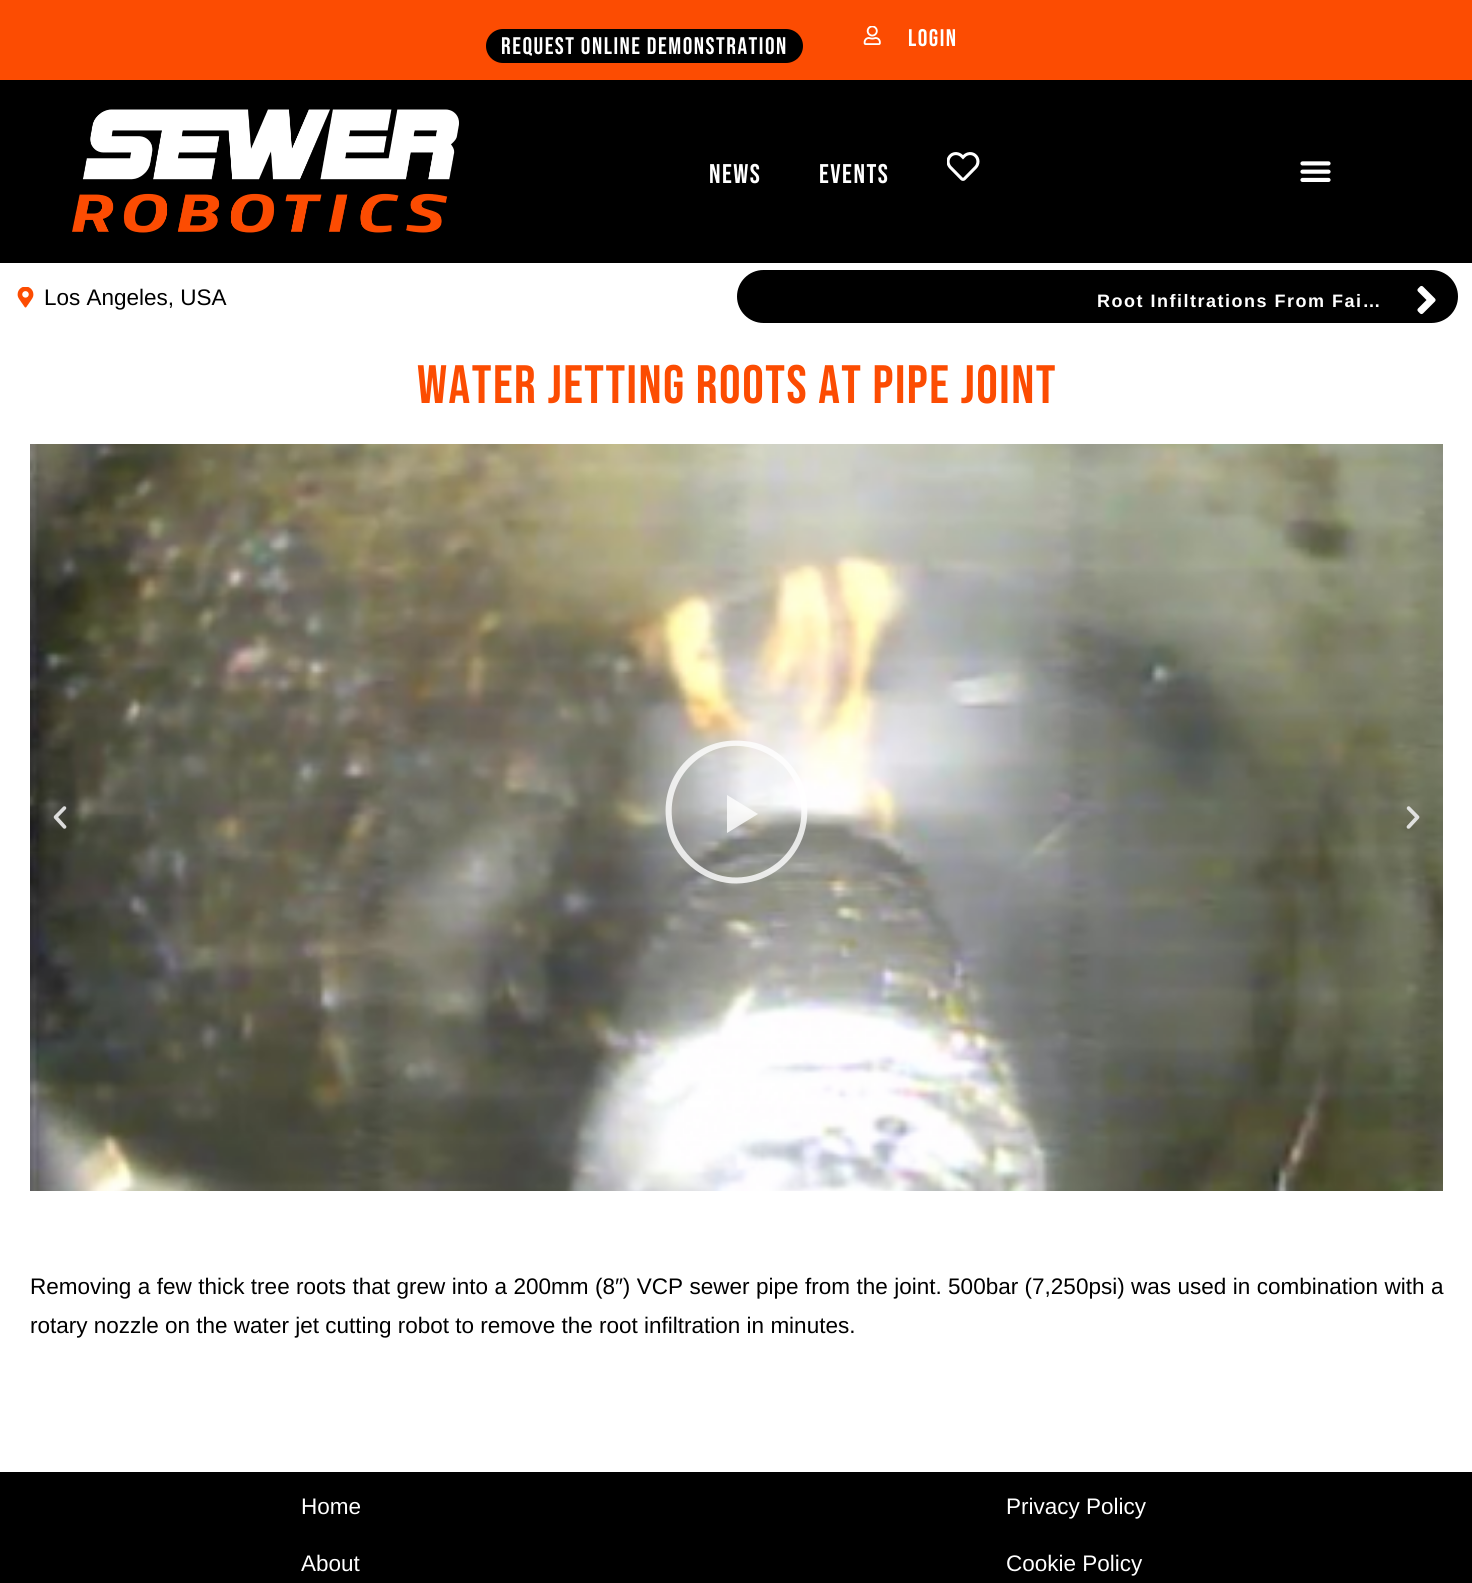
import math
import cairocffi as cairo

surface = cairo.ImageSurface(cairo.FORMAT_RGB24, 1472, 1583)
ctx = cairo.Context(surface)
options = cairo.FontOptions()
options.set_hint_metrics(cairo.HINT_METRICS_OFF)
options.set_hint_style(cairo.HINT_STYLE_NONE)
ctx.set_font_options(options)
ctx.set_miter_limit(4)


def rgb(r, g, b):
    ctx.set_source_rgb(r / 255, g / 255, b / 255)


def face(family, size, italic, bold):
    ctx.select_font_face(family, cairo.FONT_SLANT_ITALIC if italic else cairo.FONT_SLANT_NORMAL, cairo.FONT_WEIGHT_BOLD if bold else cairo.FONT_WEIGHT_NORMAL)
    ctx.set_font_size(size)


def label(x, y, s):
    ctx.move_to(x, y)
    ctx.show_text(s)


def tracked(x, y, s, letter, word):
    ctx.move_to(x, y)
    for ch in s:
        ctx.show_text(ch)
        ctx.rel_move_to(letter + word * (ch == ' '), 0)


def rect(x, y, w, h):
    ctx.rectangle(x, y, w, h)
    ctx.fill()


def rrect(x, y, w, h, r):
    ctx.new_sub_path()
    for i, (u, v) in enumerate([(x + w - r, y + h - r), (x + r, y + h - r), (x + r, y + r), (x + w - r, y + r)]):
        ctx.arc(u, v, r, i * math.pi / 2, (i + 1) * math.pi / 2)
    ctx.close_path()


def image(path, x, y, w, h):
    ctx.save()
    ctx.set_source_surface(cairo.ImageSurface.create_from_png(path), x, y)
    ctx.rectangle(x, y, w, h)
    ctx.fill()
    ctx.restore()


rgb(255, 255, 255)
ctx.paint()
rgb(252, 76, 2)
rect(0, 0, 1472, 80)
rgb(0, 0, 0)
rrect(486, 29, 317, 34, 17)
ctx.fill()
face('Bebas Neue', 24, 0, 0)
rgb(255, 255, 255)
tracked(501, 54, 'Request online demonstration', 1.5, 0)
image('image0.png', 863, 26, 18, 19)
tracked(908, 46, 'Login', 1.5, 0)
rgb(0, 0, 0)
rect(0, 80, 1472, 183)
image('image1.png', 72, 109, 387, 124)
face('Bebas Neue', 27, 0, 0)
rgb(255, 255, 255)
tracked(709, 183, 'News', 1.5, 0)
tracked(819, 183, 'Events', 1.5, 0)
image('image2.png', 947, 152, 33, 29)
image('image3.png', 1300, 161, 31, 21)
image('image4.png', 17, 287, 17, 21)
face('Liberation Sans', 22.5, 0, 0)
rgb(0, 0, 0)
label(44, 305, 'Los Angeles, USA')
rrect(737, 270, 721, 53, 26.5)
ctx.fill()
face('Liberation Sans', 18, 0, 1)
rgb(255, 255, 255)
tracked(1097, 307, 'Root Infiltrations From Fai…', 1.5, 0)
image('image5.png', 1417, 285, 19, 30)
face('Bebas Neue', 54, 0, 0)
rgb(252, 76, 2)
tracked(417, 403, 'Water jetting roots at pipe joint', 1.5, 0)
image('image6.png', 30, 444, 1413, 747)
ctx.set_source_rgba(1, 1, 1, 0.8)
ctx.new_path()
ctx.move_to(787, 761)
ctx.curve_to(775, 749, 760, 742, 744, 741)
ctx.curve_to(698, 736, 661, 773, 666, 819)
ctx.curve_to(667, 835, 674, 850, 686, 862)
ctx.curve_to(734, 910, 813, 872, 807, 804)
ctx.curve_to(806, 788, 799, 773, 787, 761)
ctx.move_to(783, 765)
ctx.curve_to(793, 776, 800, 790, 801, 805)
ctx.curve_to(807, 866, 734, 902, 691, 858)
ctx.curve_to(680, 847, 673, 833, 672, 818)
ctx.curve_to(670, 798, 677, 779, 691, 765)
ctx.curve_to(717, 739, 756, 740, 783, 765)
ctx.move_to(727, 795)
ctx.line_to(727, 833)
ctx.line_to(758, 814)
ctx.close_path()
ctx.fill()
image('image7.png', 53, 806, 14, 23)
image('image8.png', 1406, 806, 14, 23)
face('Liberation Sans', 22.5, 0, 0)
rgb(0, 0, 0)
tracked(30, 1294, 'Removing a few thick tree roots that grew into a 200mm (8″) VCP sewer pipe from the joint. 500bar (7,250psi) was used in combination with a', 0, 0.2)
label(30, 1333, 'rotary nozzle on the water jet cutting robot to remove the root infiltration in minutes.')
rect(0, 1472, 1472, 111)
rgb(255, 255, 255)
label(301, 1514, 'Home')
label(301, 1571, 'About')
label(1006, 1514, 'Privacy Policy')
label(1006, 1571, 'Cookie Policy')
surface.write_to_png('render.png')
